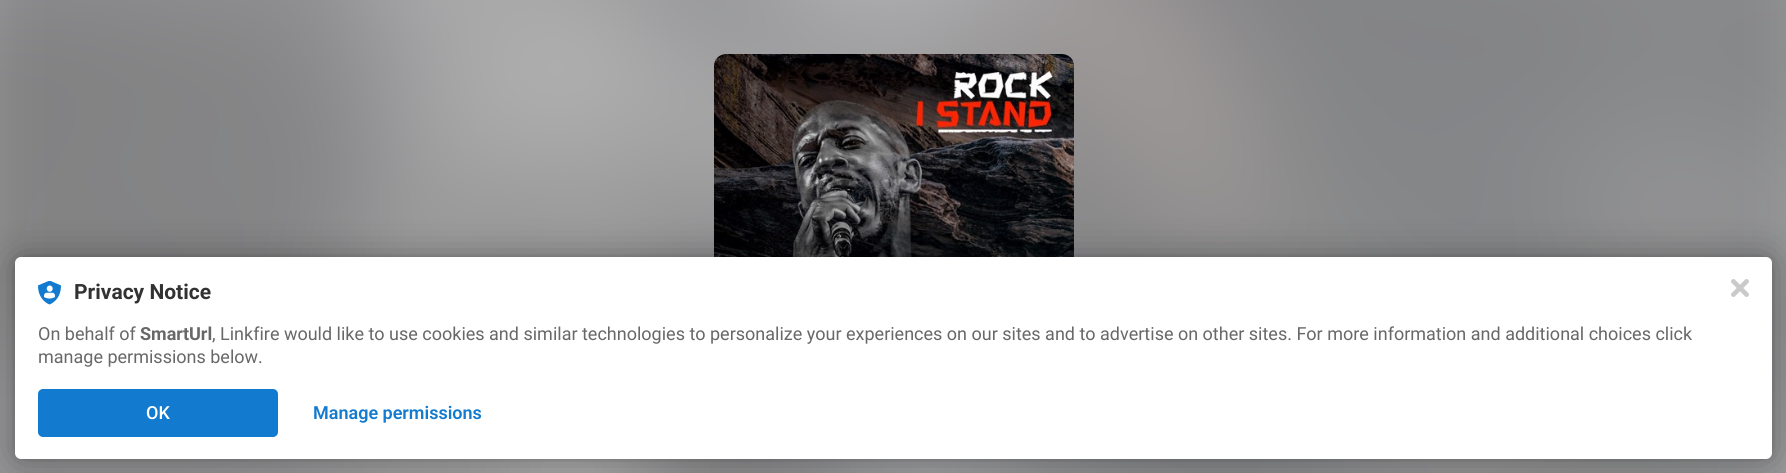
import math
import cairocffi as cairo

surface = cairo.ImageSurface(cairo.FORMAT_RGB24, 1786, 473)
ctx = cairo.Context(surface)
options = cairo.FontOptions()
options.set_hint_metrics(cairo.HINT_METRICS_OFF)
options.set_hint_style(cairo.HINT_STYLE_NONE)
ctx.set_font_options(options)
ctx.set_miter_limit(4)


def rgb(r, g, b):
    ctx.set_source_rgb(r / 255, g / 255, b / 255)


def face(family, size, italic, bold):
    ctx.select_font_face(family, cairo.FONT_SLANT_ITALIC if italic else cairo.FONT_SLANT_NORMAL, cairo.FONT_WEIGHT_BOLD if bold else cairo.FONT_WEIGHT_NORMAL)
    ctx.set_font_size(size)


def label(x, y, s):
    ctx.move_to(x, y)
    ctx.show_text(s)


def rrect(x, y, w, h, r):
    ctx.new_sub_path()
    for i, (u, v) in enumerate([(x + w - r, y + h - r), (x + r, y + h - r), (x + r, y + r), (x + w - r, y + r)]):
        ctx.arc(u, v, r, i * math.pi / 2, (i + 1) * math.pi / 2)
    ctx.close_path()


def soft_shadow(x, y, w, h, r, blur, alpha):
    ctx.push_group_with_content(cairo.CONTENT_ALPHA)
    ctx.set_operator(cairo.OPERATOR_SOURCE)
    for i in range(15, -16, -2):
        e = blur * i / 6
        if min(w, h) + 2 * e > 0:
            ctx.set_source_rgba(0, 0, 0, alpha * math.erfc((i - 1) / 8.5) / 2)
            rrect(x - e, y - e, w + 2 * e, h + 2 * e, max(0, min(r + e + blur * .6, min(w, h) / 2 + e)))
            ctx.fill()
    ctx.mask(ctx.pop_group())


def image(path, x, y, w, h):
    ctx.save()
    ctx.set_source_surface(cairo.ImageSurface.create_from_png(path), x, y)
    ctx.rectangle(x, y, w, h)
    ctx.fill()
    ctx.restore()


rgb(255, 255, 255)
ctx.paint()
image('image0.png', 0, 0, 1786, 473)
image('image1.png', 714, 54, 360, 203)
rgb(0, 0, 0)
soft_shadow(15, 257, 1757, 202, 6, 3, 0.12)
soft_shadow(15, 257, 1757, 202, 6, 18, 0.3)
rgb(255, 255, 255)
rrect(15, 257, 1757, 202, 6)
ctx.fill()
image('image2.png', 38, 281, 23, 24)
face('Roboto', 21, 0, 1)
rgb(50, 50, 50)
label(74, 299, 'Privacy Notice')
face('Roboto', 18, 0, 0)
rgb(104, 104, 104)
label(38, 340, 'On behalf of')
face('Roboto', 18, 0, 1)
label(140, 340, 'SmartUrl')
face('Roboto', 18, 0, 0)
label(212, 340, ', Linkfire would like to use cookies and similar technologies to personalize your experiences on our sites and to advertise on other sites. For more information and additional choices click')
label(38, 363, 'manage permissions below.')
rgb(19, 123, 207)
rrect(38, 389, 240, 48, 5)
ctx.fill()
face('Roboto Medium', 18, 0, 0)
rgb(255, 255, 255)
label(146, 419, 'OK')
face('Roboto SemiBold', 18, 0, 0)
rgb(19, 123, 207)
label(313, 419, 'Manage permissions')
image('image3.png', 1731, 279, 18, 18)
surface.write_to_png('render.png')
